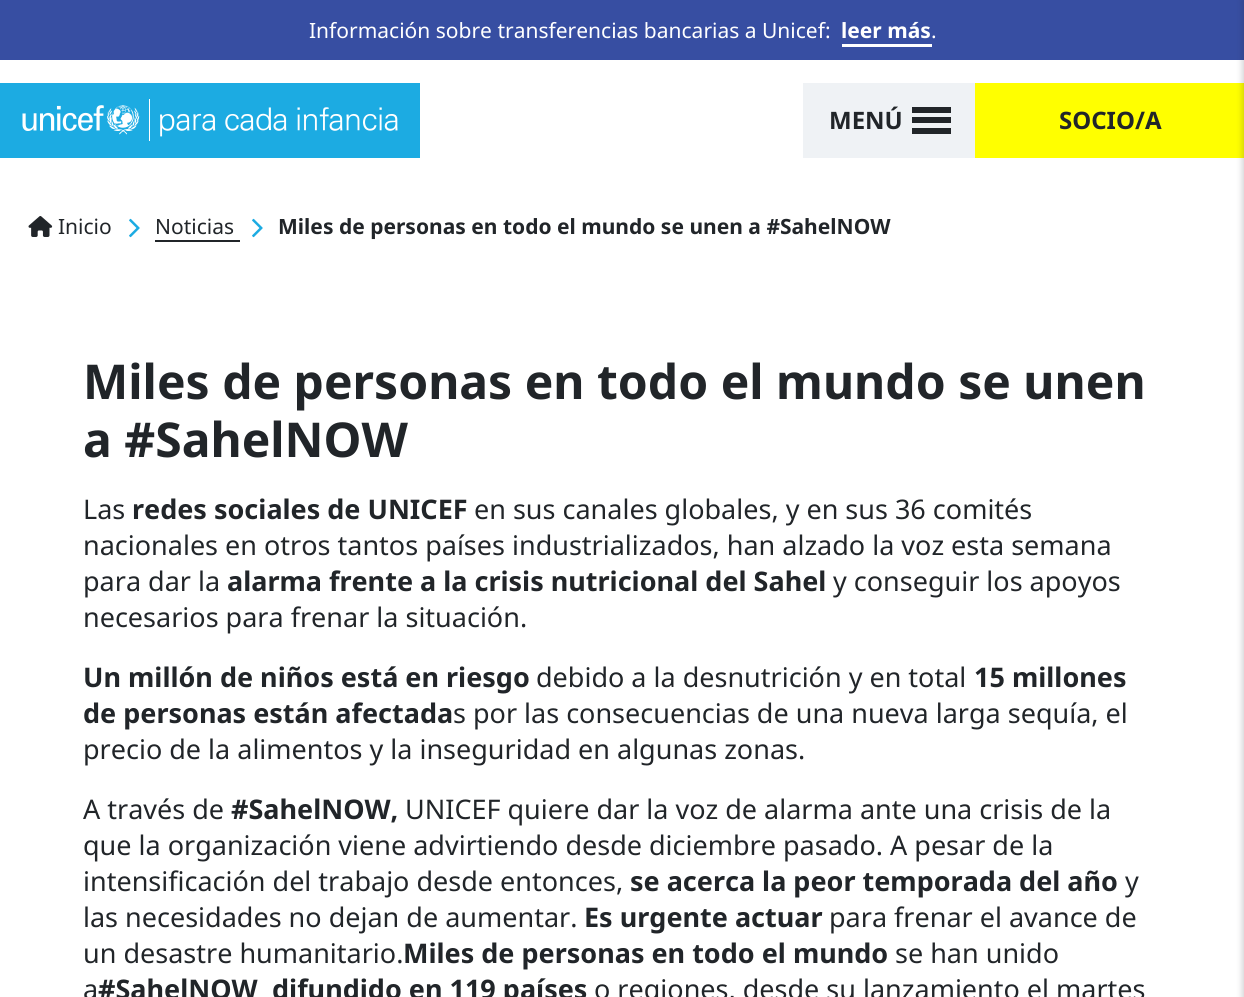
import math
import cairocffi as cairo

surface = cairo.ImageSurface(cairo.FORMAT_RGB24, 1244, 997)
ctx = cairo.Context(surface)
options = cairo.FontOptions()
options.set_hint_metrics(cairo.HINT_METRICS_OFF)
options.set_hint_style(cairo.HINT_STYLE_NONE)
ctx.set_font_options(options)
ctx.set_miter_limit(4)


def rgb(r, g, b):
    ctx.set_source_rgb(r / 255, g / 255, b / 255)


def face(family, size, italic, bold):
    ctx.select_font_face(family, cairo.FONT_SLANT_ITALIC if italic else cairo.FONT_SLANT_NORMAL, cairo.FONT_WEIGHT_BOLD if bold else cairo.FONT_WEIGHT_NORMAL)
    ctx.set_font_size(size)


def label(x, y, s):
    ctx.move_to(x, y)
    ctx.show_text(s)


def rect(x, y, w, h):
    ctx.rectangle(x, y, w, h)
    ctx.fill()


def rrect(x, y, w, h, r):
    ctx.new_sub_path()
    for i, (u, v) in enumerate([(x + w - r, y + h - r), (x + r, y + h - r), (x + r, y + r), (x + w - r, y + r)]):
        ctx.arc(u, v, r, i * math.pi / 2, (i + 1) * math.pi / 2)
    ctx.close_path()


def soft_shadow(x, y, w, h, r, blur, alpha):
    ctx.push_group_with_content(cairo.CONTENT_ALPHA)
    ctx.set_operator(cairo.OPERATOR_SOURCE)
    for i in range(15, -16, -2):
        e = blur * i / 6
        if min(w, h) + 2 * e > 0:
            ctx.set_source_rgba(0, 0, 0, alpha * math.erfc((i - 1) / 8.5) / 2)
            rrect(x - e, y - e, w + 2 * e, h + 2 * e, max(0, min(r + e + blur * .6, min(w, h) / 2 + e)))
            ctx.fill()
    ctx.mask(ctx.pop_group())


def image(path, x, y, w, h):
    ctx.save()
    ctx.set_source_surface(cairo.ImageSurface.create_from_png(path), x, y)
    ctx.rectangle(x, y, w, h)
    ctx.fill()
    ctx.restore()


rgb(255, 255, 255)
ctx.paint()
rgb(55, 78, 162)
rect(0, 0, 1244, 60)
face('Noto Sans', 21, 0, 0)
rgb(255, 255, 255)
label(309, 38, 'Información sobre transferencias bancarias a Unicef:')
rect(842, 44, 90, 3)
face('Noto Sans', 21, 0, 1)
label(841, 38, 'leer más')
face('Noto Sans', 21, 0, 0)
label(931, 38, '.')
rgb(255, 255, 0)
rect(975, 83, 269, 75)
rgb(33, 37, 41)
soft_shadow(1242, 0, 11, 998, 0, 3, 0.2)
rgb(28, 171, 226)
rect(0, 83, 420, 75)
image('image0.png', 22, 99, 376, 42)
rgb(239, 242, 245)
rect(803, 83, 172, 75)
face('Noto Sans', 24, 0, 1)
rgb(33, 37, 41)
label(829, 129, 'MENÚ')
rect(912, 107, 39, 6)
rect(912, 117, 39, 6)
rect(912, 128, 39, 6)
label(1059, 129, 'SOCIO/A')
image('image1.png', 28, 216, 25, 21)
face('Noto Sans', 21, 0, 0)
label(58, 234, 'Inicio')
image('image2.png', 129, 218, 11, 20)
label(155, 234, 'Noticias')
rect(155, 240, 85, 2)
image('image2.png', 252, 218, 11, 20)
face('Noto Sans', 21, 0, 1)
label(278, 234, 'Miles de personas en todo el mundo se unen a #SahelNOW')
face('Noto Sans', 48, 0, 1)
label(83, 399, 'Miles de personas en todo el mundo se unen')
label(83, 457, 'a #SahelNOW')
face('Noto Sans', 27, 0, 0)
label(83, 519, 'Las')
face('Noto Sans', 27, 0, 1)
label(132, 519, 'redes sociales de UNICEF')
face('Noto Sans', 27, 0, 0)
label(474, 519, 'en sus canales globales, y en sus 36 comités')
label(83, 555, 'nacionales en otros tantos países industrializados, han alzado la voz esta semana')
label(83, 591, 'para dar la')
face('Noto Sans', 27, 0, 1)
label(227, 591, 'alarma frente a la crisis nutricional del Sahel')
face('Noto Sans', 27, 0, 0)
label(833, 591, 'y conseguir los apoyos')
label(83, 627, 'necesarios para frenar la situación.')
face('Noto Sans', 27, 0, 1)
label(83, 687, 'Un millón de niños está en riesgo')
face('Noto Sans', 27, 0, 0)
label(536, 687, 'debido a la desnutrición y en total')
face('Noto Sans', 27, 0, 1)
label(974, 687, '15 millones')
label(83, 723, 'de personas están afectada')
face('Noto Sans', 27, 0, 0)
label(453, 723, 's por las consecuencias de una nueva larga sequía, el')
label(83, 759, 'precio de la alimentos y la inseguridad en algunas zonas.')
label(83, 819, 'A través de')
face('Noto Sans', 27, 0, 1)
label(231, 819, '#SahelNOW,')
face('Noto Sans', 27, 0, 0)
label(405, 819, 'UNICEF quiere dar la voz de alarma ante una crisis de la')
label(83, 855, 'que la organización viene advirtiendo desde diciembre pasado. A pesar de la')
label(83, 891, 'intensificación del trabajo desde entonces,')
face('Noto Sans', 27, 0, 1)
label(630, 891, 'se acerca la peor temporada del año')
face('Noto Sans', 27, 0, 0)
label(1125, 891, 'y')
label(83, 927, 'las necesidades no dejan de aumentar.')
face('Noto Sans', 27, 0, 1)
label(584, 927, 'Es urgente actuar')
face('Noto Sans', 27, 0, 0)
label(829, 927, 'para frenar el avance de')
label(83, 963, 'un desastre humanitario.')
face('Noto Sans', 27, 0, 1)
label(403, 963, 'Miles de personas en todo el mundo')
face('Noto Sans', 27, 0, 0)
label(895, 963, 'se han unido')
label(83, 999, 'a')
face('Noto Sans', 27, 0, 1)
label(98, 999, '#SahelNOW')
label(272, 999, 'difundido en 119 países')
face('Noto Sans', 27, 0, 0)
label(594, 999, 'o regiones, desde su lanzamiento el martes')
surface.write_to_png('render.png')
